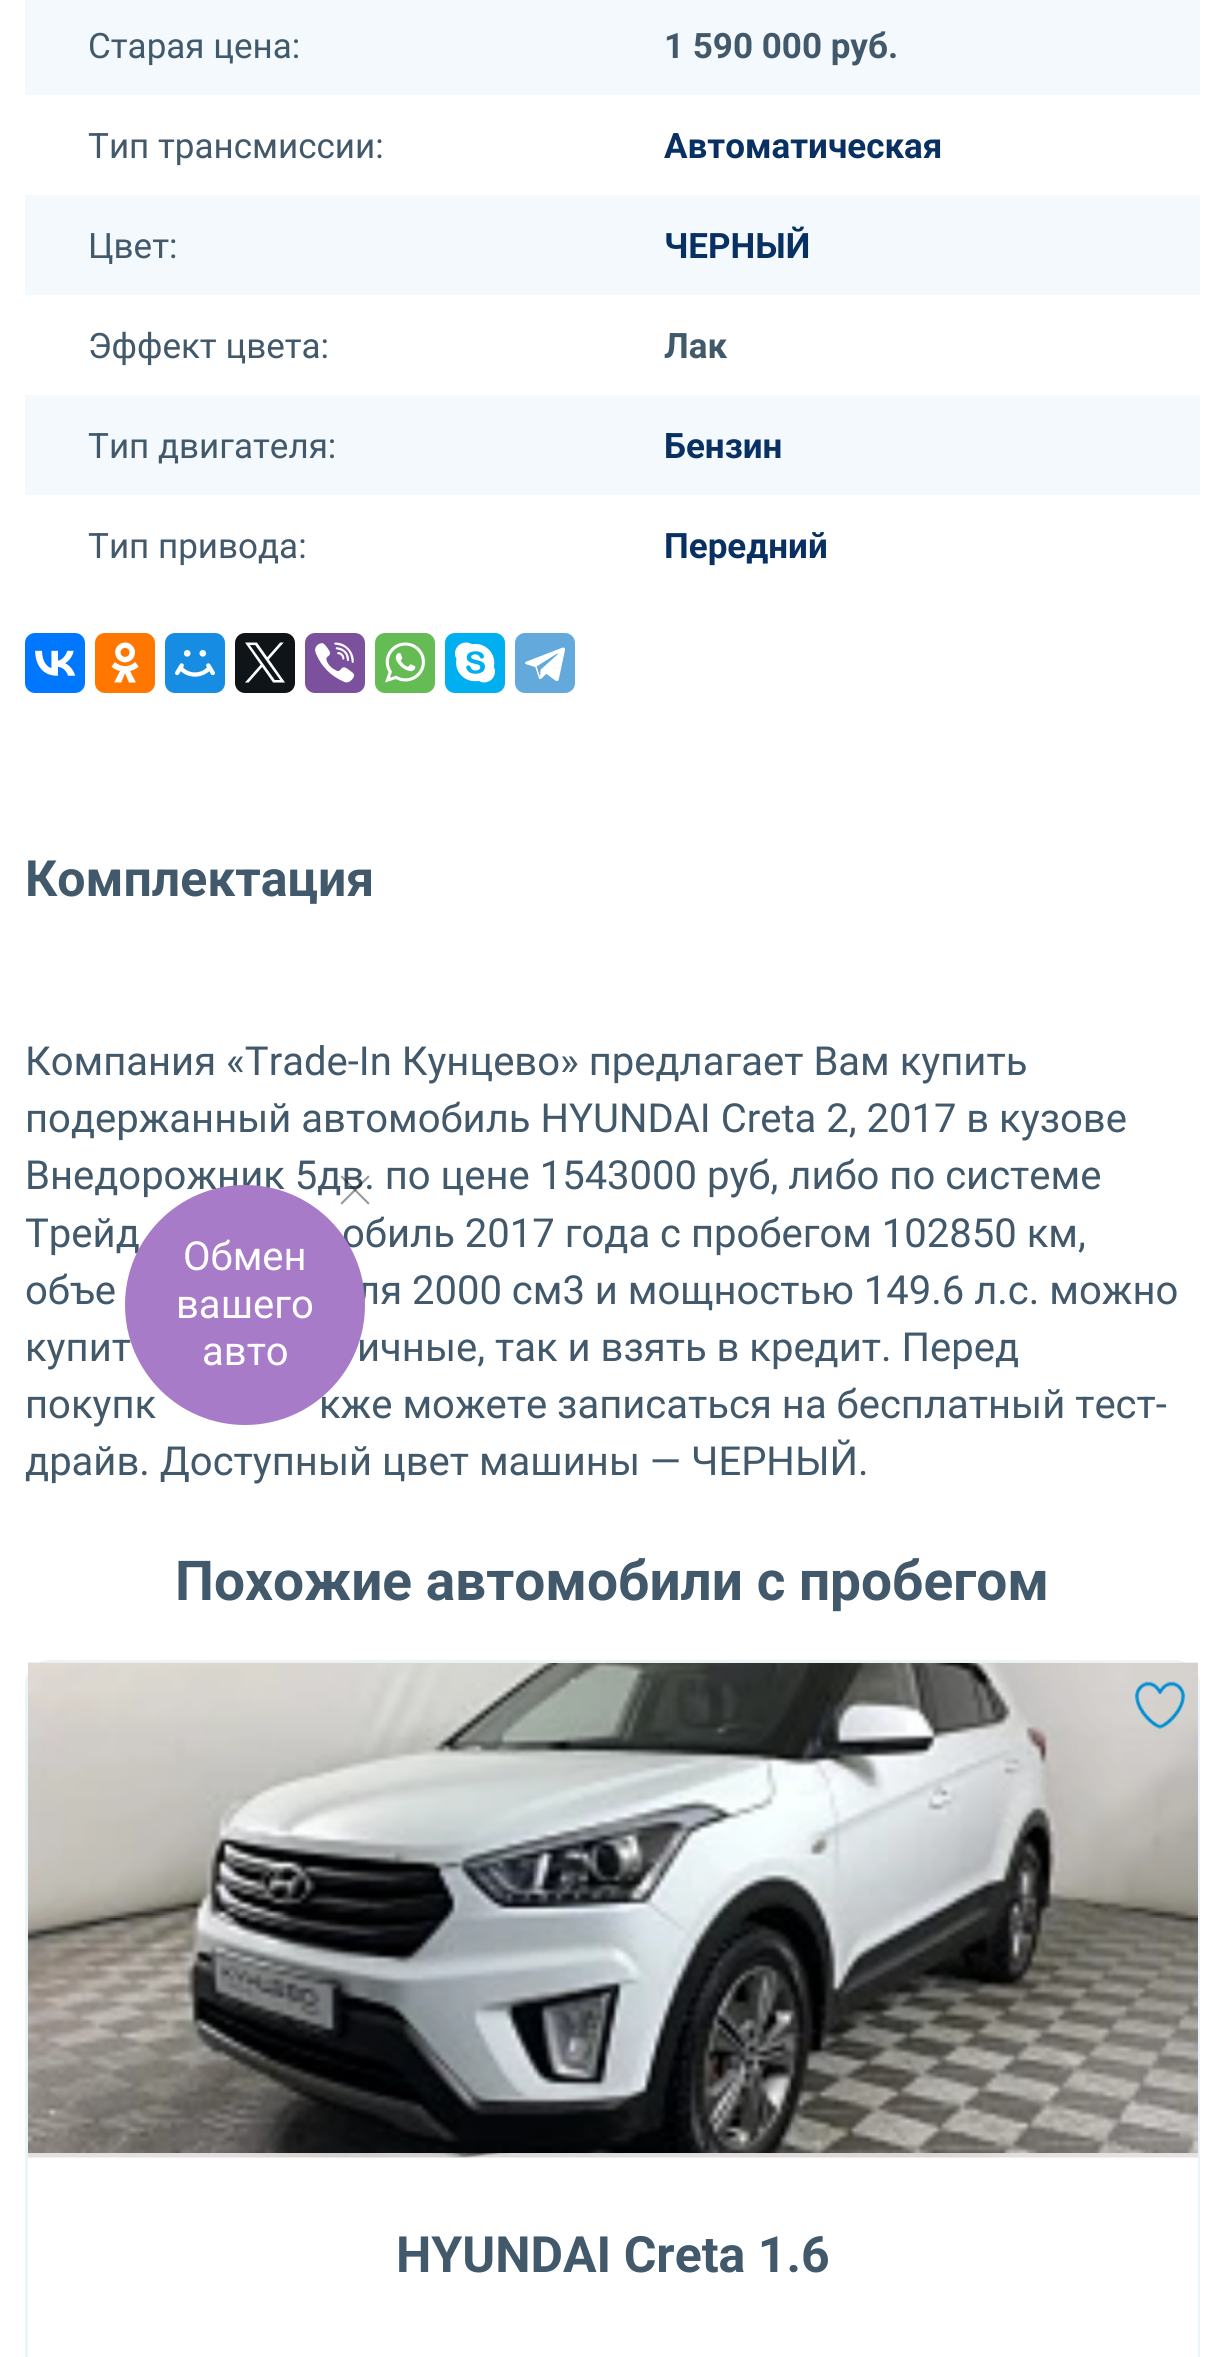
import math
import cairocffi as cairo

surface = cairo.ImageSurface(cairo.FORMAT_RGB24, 1225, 2357)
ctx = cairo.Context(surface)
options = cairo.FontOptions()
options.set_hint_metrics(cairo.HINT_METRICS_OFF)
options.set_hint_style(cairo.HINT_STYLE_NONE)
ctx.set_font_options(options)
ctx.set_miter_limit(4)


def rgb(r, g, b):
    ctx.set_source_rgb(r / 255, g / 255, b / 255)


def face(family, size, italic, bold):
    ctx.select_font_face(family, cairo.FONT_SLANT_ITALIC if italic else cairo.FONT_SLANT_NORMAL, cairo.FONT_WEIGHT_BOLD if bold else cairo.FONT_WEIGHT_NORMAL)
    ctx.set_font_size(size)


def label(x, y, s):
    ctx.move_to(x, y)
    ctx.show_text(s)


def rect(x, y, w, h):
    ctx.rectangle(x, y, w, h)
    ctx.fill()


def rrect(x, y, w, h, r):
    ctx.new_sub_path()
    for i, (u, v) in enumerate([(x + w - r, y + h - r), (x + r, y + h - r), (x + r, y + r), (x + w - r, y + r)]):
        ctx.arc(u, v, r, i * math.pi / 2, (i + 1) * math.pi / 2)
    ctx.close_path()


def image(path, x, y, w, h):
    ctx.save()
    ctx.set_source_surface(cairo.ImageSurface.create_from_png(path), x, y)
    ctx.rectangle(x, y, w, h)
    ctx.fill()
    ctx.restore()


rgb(255, 255, 255)
ctx.paint()
rgb(243, 249, 252)
rect(25, 0, 1175, 95)
face('Roboto', 35, 0, 0)
rgb(65, 89, 107)
label(88, 58, 'Старая цена:')
face('Roboto', 35, 0, 1)
label(664, 58, '1 590 000 руб.')
face('Roboto', 35, 0, 0)
label(88, 158, 'Тип трансмиссии:')
face('Roboto', 35, 0, 1)
rgb(9, 48, 98)
label(664, 158, 'Автоматическая')
rgb(243, 249, 252)
rect(25, 195, 1175, 100)
face('Roboto', 35, 0, 0)
rgb(65, 89, 107)
label(88, 258, 'Цвет:')
face('Roboto', 35, 0, 1)
rgb(9, 48, 98)
label(664, 258, 'ЧЕРНЫЙ')
face('Roboto', 35, 0, 0)
rgb(65, 89, 107)
label(88, 358, 'Эффект цвета:')
face('Roboto', 35, 0, 1)
label(664, 358, 'Лак')
rgb(243, 249, 252)
rect(25, 395, 1175, 100)
face('Roboto', 35, 0, 0)
rgb(65, 89, 107)
label(88, 458, 'Тип двигателя:')
face('Roboto', 35, 0, 1)
rgb(9, 48, 98)
label(664, 458, 'Бензин')
face('Roboto', 35, 0, 0)
rgb(65, 89, 107)
label(88, 558, 'Тип привода:')
face('Roboto', 35, 0, 1)
rgb(9, 48, 98)
label(664, 558, 'Передний')
rgb(0, 119, 255)
rrect(25, 633, 60, 60, 10)
ctx.fill()
image('image0.png', 35, 650, 41, 26)
rgb(255, 119, 0)
rrect(95, 633, 60, 60, 10)
ctx.fill()
image('image1.png', 111, 642, 28, 41)
rgb(22, 141, 226)
rrect(165, 633, 60, 60, 10)
ctx.fill()
image('image2.png', 175, 650, 40, 27)
rgb(15, 20, 25)
rrect(235, 633, 60, 60, 10)
ctx.fill()
image('image3.png', 245, 642, 40, 41)
rgb(123, 81, 157)
rrect(305, 633, 60, 60, 10)
ctx.fill()
image('image4.png', 315, 642, 40, 41)
rgb(101, 188, 84)
rrect(375, 633, 60, 60, 10)
ctx.fill()
image('image5.png', 385, 642, 40, 41)
rgb(0, 175, 240)
rrect(445, 633, 60, 60, 10)
ctx.fill()
image('image6.png', 455, 642, 40, 41)
rgb(100, 169, 220)
rrect(515, 633, 60, 60, 10)
ctx.fill()
image('image7.png', 525, 647, 40, 34)
face('Roboto', 50, 0, 1)
rgb(65, 89, 107)
label(25, 896, 'Комплектация')
face('Roboto', 40, 0, 0)
label(25, 1075, 'Компания «Trade-In Кунцево» предлагает Вам купить')
label(25, 1132, 'подержанный автомобиль HYUNDAI Creta 2, 2017 в кузове')
label(25, 1189, 'Внедорожник 5дв. по цене 1543000 руб, либо по системе')
label(25, 1247, 'Трейд')
label(342, 1247, 'обиль 2017 года с пробегом 102850 км,')
label(25, 1304, 'объе')
label(357, 1304, 'ля 2000 см3 и мощностью 149.6 л.с. можно')
label(25, 1361, 'купит')
label(357, 1361, 'ичные, так и взять в кредит. Перед')
label(25, 1418, 'покупк')
label(319, 1418, 'кже можете записаться на бесплатный тест-')
label(25, 1475, 'драйв. Доступный цвет машины — ЧЕРНЫЙ.')
face('Roboto', 55, 0, 1)
label(175, 1600, 'Похожие автомобили с пробегом')
rgb(235, 245, 249)
ctx.set_fill_rule(cairo.FILL_RULE_EVEN_ODD)
ctx.new_path()
ctx.move_to(50, 1660)
ctx.line_to(1175, 1660)
ctx.curve_to(1189, 1660, 1200, 1671, 1200, 1685)
ctx.line_to(1200, 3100)
ctx.curve_to(1200, 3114, 1189, 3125, 1175, 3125)
ctx.line_to(50, 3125)
ctx.curve_to(36, 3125, 25, 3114, 25, 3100)
ctx.line_to(25, 1685)
ctx.curve_to(25, 1671, 36, 1660, 50, 1660)
ctx.close_path()
ctx.move_to(50, 1662)
ctx.line_to(1175, 1662)
ctx.curve_to(1187, 1662, 1198, 1673, 1198, 1685)
ctx.line_to(1198, 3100)
ctx.curve_to(1198, 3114, 1187, 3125, 1175, 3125)
ctx.line_to(50, 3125)
ctx.curve_to(38, 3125, 28, 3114, 28, 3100)
ctx.line_to(28, 1685)
ctx.curve_to(28, 1673, 38, 1662, 50, 1662)
ctx.close_path()
ctx.fill()
image('image8.png', 28, 1662, 1170, 496)
image('image9.png', 28, 1663, 1170, 490)
image('image10.png', 1135, 1681, 50, 48)
face('Roboto', 50, 0, 1)
rgb(65, 89, 107)
label(396, 2272, 'HYUNDAI Creta 1.6')
rgb(168, 123, 201)
ctx.new_path()
ctx.arc(245, 1305, 120, 0, 2 * math.pi)
ctx.fill()
ctx.set_source_rgba(0, 0, 0, 0.4)
ctx.set_fill_rule(cairo.FILL_RULE_WINDING)
ctx.new_path()
ctx.move_to(342.5, 1176)
ctx.line_to(369, 1202.5)
ctx.curve_to(369.5, 1203, 369.5, 1203.5, 369, 1204)
ctx.curve_to(368.5, 1204.5, 368, 1204.5, 367.5, 1204)
ctx.line_to(341, 1177.5)
ctx.curve_to(340.5, 1177, 340.5, 1176.5, 341, 1176)
ctx.curve_to(341.5, 1175.5, 342, 1175.5, 342.5, 1176)
ctx.close_path()
ctx.fill()
ctx.new_path()
ctx.move_to(341, 1202.5)
ctx.line_to(367.5, 1176)
ctx.curve_to(368, 1175.5, 368.5, 1175.5, 369, 1176)
ctx.curve_to(369.5, 1176.5, 369.5, 1177, 369, 1177.5)
ctx.line_to(342.5, 1204)
ctx.curve_to(342, 1204.5, 341.5, 1204.5, 341, 1204)
ctx.curve_to(340.5, 1203.5, 340.5, 1203, 341, 1202.5)
ctx.close_path()
ctx.fill()
face('Roboto', 40, 0, 0)
rgb(255, 255, 255)
label(183, 1270, 'Обмен')
label(176, 1318, 'вашего')
label(202, 1365, 'авто')
surface.write_to_png('render.png')
